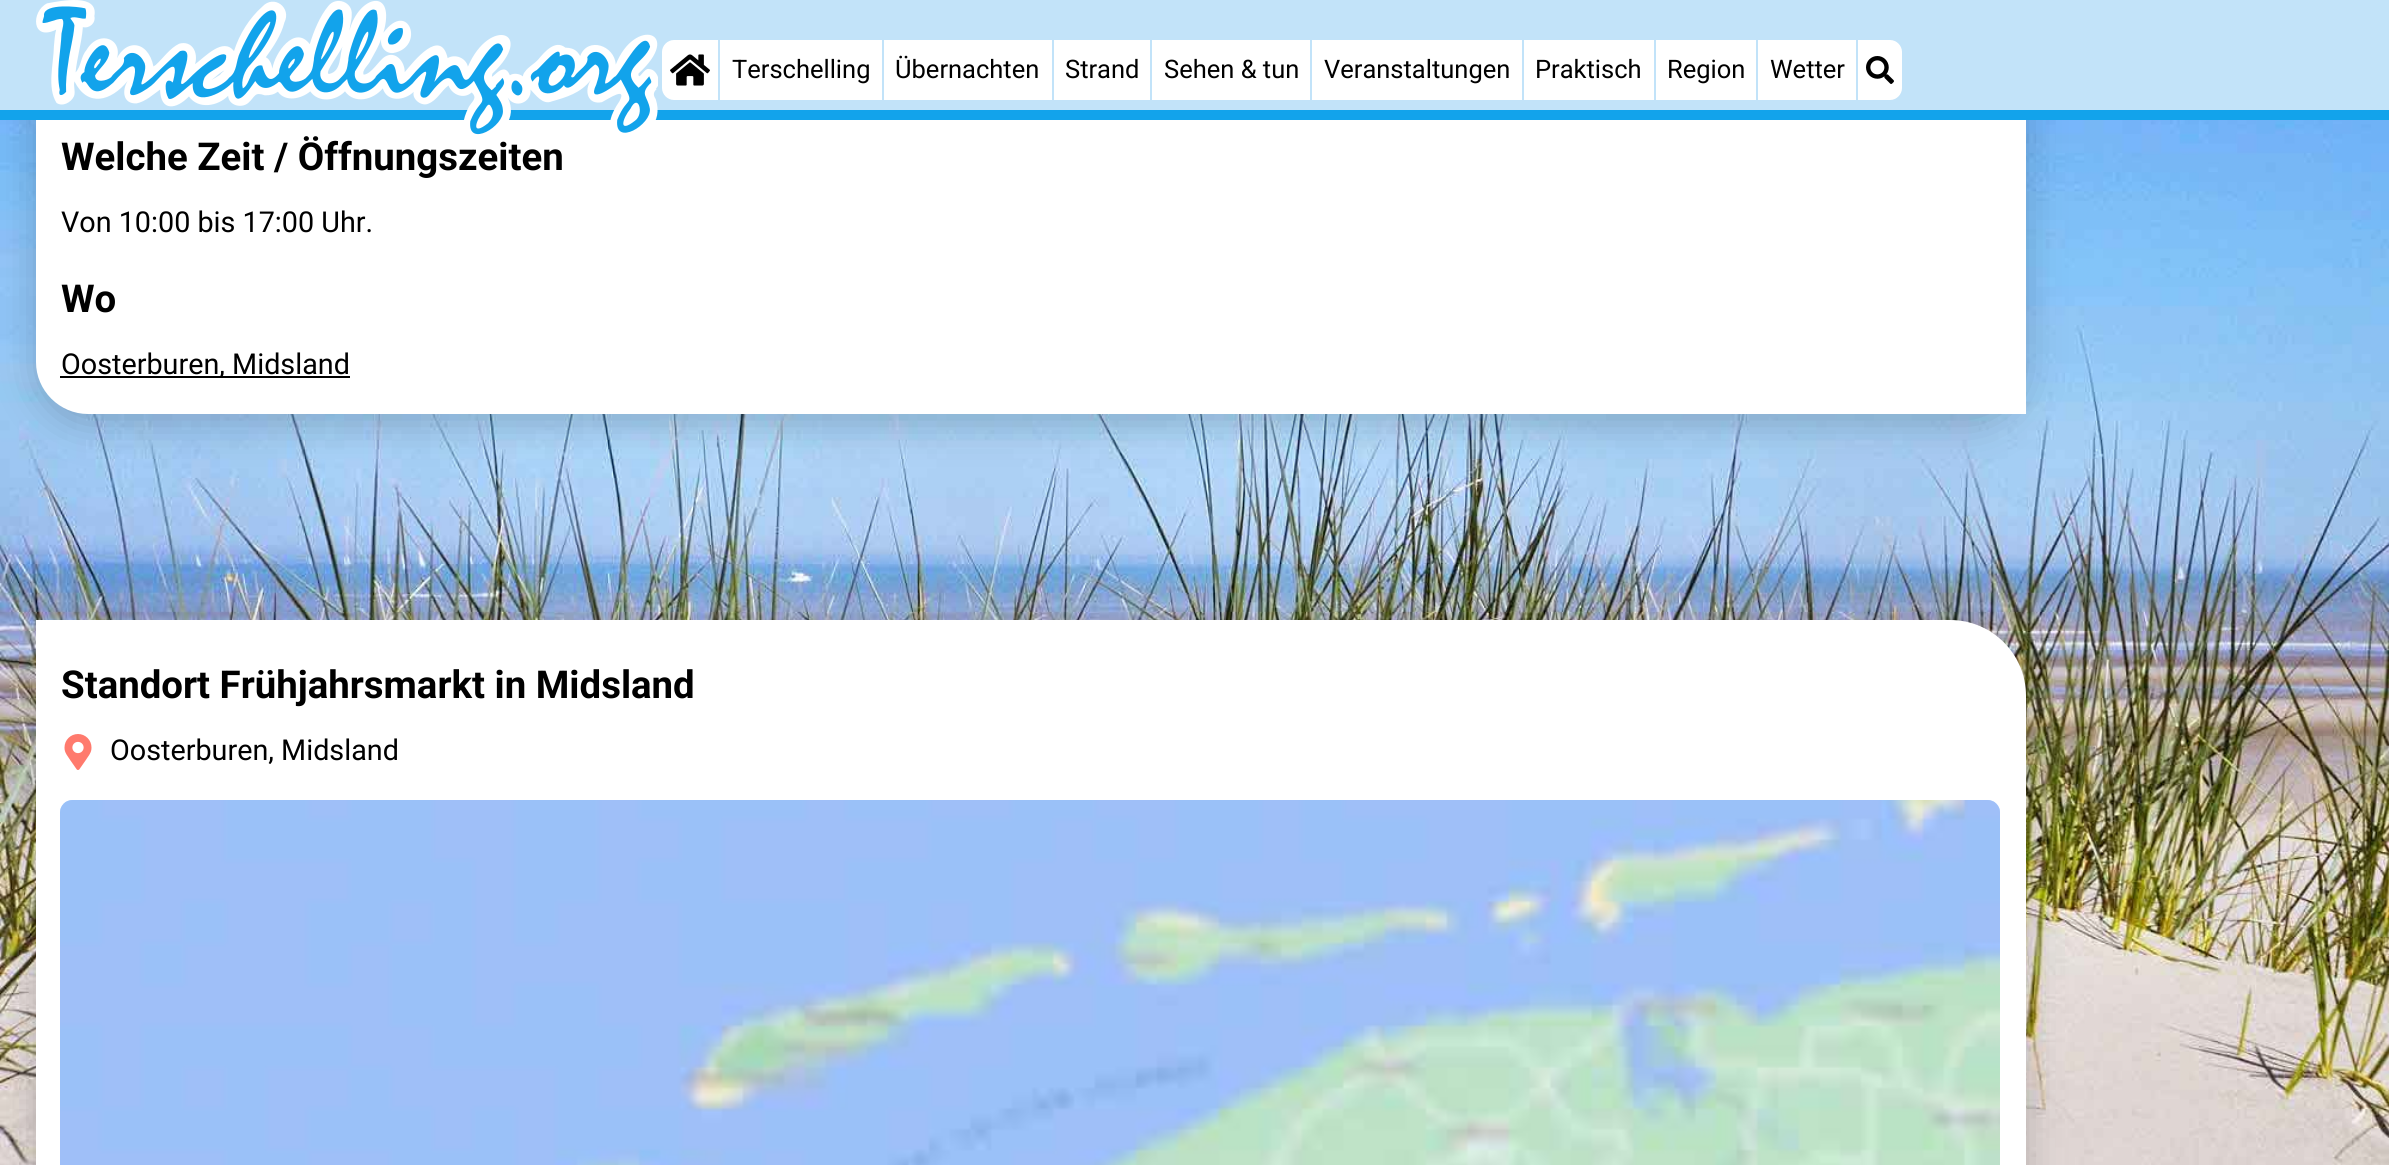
import math
import cairocffi as cairo

surface = cairo.ImageSurface(cairo.FORMAT_RGB24, 2389, 1165)
ctx = cairo.Context(surface)
options = cairo.FontOptions()
options.set_hint_metrics(cairo.HINT_METRICS_OFF)
options.set_hint_style(cairo.HINT_STYLE_NONE)
ctx.set_font_options(options)
ctx.set_miter_limit(4)


def rgb(r, g, b):
    ctx.set_source_rgb(r / 255, g / 255, b / 255)


def face(family, size, italic, bold):
    ctx.select_font_face(family, cairo.FONT_SLANT_ITALIC if italic else cairo.FONT_SLANT_NORMAL, cairo.FONT_WEIGHT_BOLD if bold else cairo.FONT_WEIGHT_NORMAL)
    ctx.set_font_size(size)


def label(x, y, s):
    ctx.move_to(x, y)
    ctx.show_text(s)


def rect(x, y, w, h):
    ctx.rectangle(x, y, w, h)
    ctx.fill()


def rrect(x, y, w, h, r):
    ctx.new_sub_path()
    for i, (u, v) in enumerate([(x + w - r, y + h - r), (x + r, y + h - r), (x + r, y + r), (x + w - r, y + r)]):
        ctx.arc(u, v, r, i * math.pi / 2, (i + 1) * math.pi / 2)
    ctx.close_path()


def soft_shadow(x, y, w, h, r, blur, alpha):
    ctx.push_group_with_content(cairo.CONTENT_ALPHA)
    ctx.set_operator(cairo.OPERATOR_SOURCE)
    for i in range(15, -16, -2):
        e = blur * i / 6
        if min(w, h) + 2 * e > 0:
            ctx.set_source_rgba(0, 0, 0, alpha * math.erfc((i - 1) / 8.5) / 2)
            rrect(x - e, y - e, w + 2 * e, h + 2 * e, max(0, min(r + e + blur * .6, min(w, h) / 2 + e)))
            ctx.fill()
    ctx.mask(ctx.pop_group())


def image(path, x, y, w, h):
    ctx.save()
    ctx.set_source_surface(cairo.ImageSurface.create_from_png(path), x, y)
    ctx.rectangle(x, y, w, h)
    ctx.fill()
    ctx.restore()


rgb(255, 255, 255)
ctx.paint()
image('image3.png', 0, 120, 2389, 1045)
rgb(0, 0, 0)
soft_shadow(36, -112, 1990, 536, 52, 20, 0.2)
rgb(255, 255, 255)
ctx.new_path()
ctx.move_to(36, -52)
ctx.line_to(1974, -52)
ctx.curve_to(2002.5, -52, 2026, -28.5, 2026, 0)
ctx.line_to(2026, 414)
ctx.line_to(88, 414)
ctx.curve_to(59.5, 414, 36, 390.5, 36, 362)
ctx.close_path()
ctx.fill()
rgb(194, 227, 249)
rect(0, 0, 2389, 110)
rgb(18, 163, 235)
rect(0, 110, 2389, 10)
image('image0.png', 36, 0, 622, 135)
rgb(255, 255, 255)
ctx.new_path()
ctx.move_to(674, 40)
ctx.line_to(718, 40)
ctx.line_to(718, 100)
ctx.line_to(674, 100)
ctx.curve_to(667.5, 100, 662, 94.5, 662, 88)
ctx.line_to(662, 52)
ctx.curve_to(662, 45.5, 667.5, 40, 674, 40)
ctx.close_path()
ctx.fill()
image('image1.png', 670, 54, 40, 32)
rect(720, 40, 162, 60)
face('Roboto', 25.5, 0, 0)
rgb(0, 0, 0)
label(732, 78, 'Terschelling')
rgb(255, 255, 255)
rect(884, 40, 168, 60)
rgb(0, 0, 0)
label(895, 78, 'Übernachten')
rgb(255, 255, 255)
rect(1054, 40, 96, 60)
rgb(0, 0, 0)
label(1065, 78, 'Strand')
rgb(255, 255, 255)
rect(1152, 40, 158, 60)
rgb(0, 0, 0)
label(1164, 78, 'Sehen & tun')
rgb(255, 255, 255)
rect(1312, 40, 210, 60)
rgb(0, 0, 0)
label(1324, 78, 'Veranstaltungen')
rgb(255, 255, 255)
rect(1524, 40, 130, 60)
rgb(0, 0, 0)
label(1535, 78, 'Praktisch')
rgb(255, 255, 255)
rect(1656, 40, 100, 60)
rgb(0, 0, 0)
label(1667, 78, 'Region')
rgb(255, 255, 255)
rect(1758, 40, 98, 60)
rgb(0, 0, 0)
label(1770, 78, 'Wetter')
rgb(255, 255, 255)
ctx.new_path()
ctx.move_to(1858, 40)
ctx.line_to(1890, 40)
ctx.curve_to(1896.5, 40, 1902, 45.5, 1902, 52)
ctx.line_to(1902, 88)
ctx.curve_to(1902, 94.5, 1896.5, 100, 1890, 100)
ctx.line_to(1858, 100)
ctx.close_path()
ctx.fill()
image('image2.png', 1866, 56, 28, 28)
face('Roboto', 38.4, 0, 1)
rgb(0, 0, 0)
label(61, 170, 'Welche Zeit / Öffnungszeiten')
face('Roboto', 28.75, 0, 0)
label(61, 232, 'Von 10:00 bis 17:00 Uhr.')
face('Roboto', 38.4, 0, 1)
label(61, 312, 'Wo')
rect(60, 376, 290, 2)
face('Roboto', 28.75, 0, 0)
label(61, 374, 'Oosterburen, Midsland')
rgb(0, 0, 0)
soft_shadow(36, 630, 1990, 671, 76, 20, 0.2)
rgb(255, 255, 255)
ctx.new_path()
ctx.move_to(36, 620)
ctx.line_to(1950, 620)
ctx.curve_to(1992, 620, 2026, 654, 2026, 696)
ctx.line_to(2026, 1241)
ctx.line_to(88, 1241)
ctx.curve_to(59.5, 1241, 36, 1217.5, 36, 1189)
ctx.close_path()
ctx.fill()
face('Roboto', 38.4, 0, 1)
rgb(0, 0, 0)
label(61, 698, 'Standort Frühjahrsmarkt in Midsland')
image('image4.png', 64, 734, 28, 36)
face('Roboto', 28.75, 0, 0)
label(110, 760, 'Oosterburen, Midsland')
rgb(184, 217, 254)
ctx.new_path()
ctx.move_to(72, 800)
ctx.line_to(1988, 800)
ctx.curve_to(1994.5, 800, 2000, 805.5, 2000, 812)
ctx.line_to(2000, 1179)
ctx.curve_to(2000, 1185.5, 1994.5, 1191, 1988, 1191)
ctx.line_to(86, 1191)
ctx.curve_to(71.5, 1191, 60, 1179.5, 60, 1165)
ctx.line_to(60, 812)
ctx.curve_to(60, 805.5, 65.5, 800, 72, 800)
ctx.close_path()
ctx.fill()
image('image5.png', 60, 800, 1940, 365)
surface.write_to_png('render.png')
